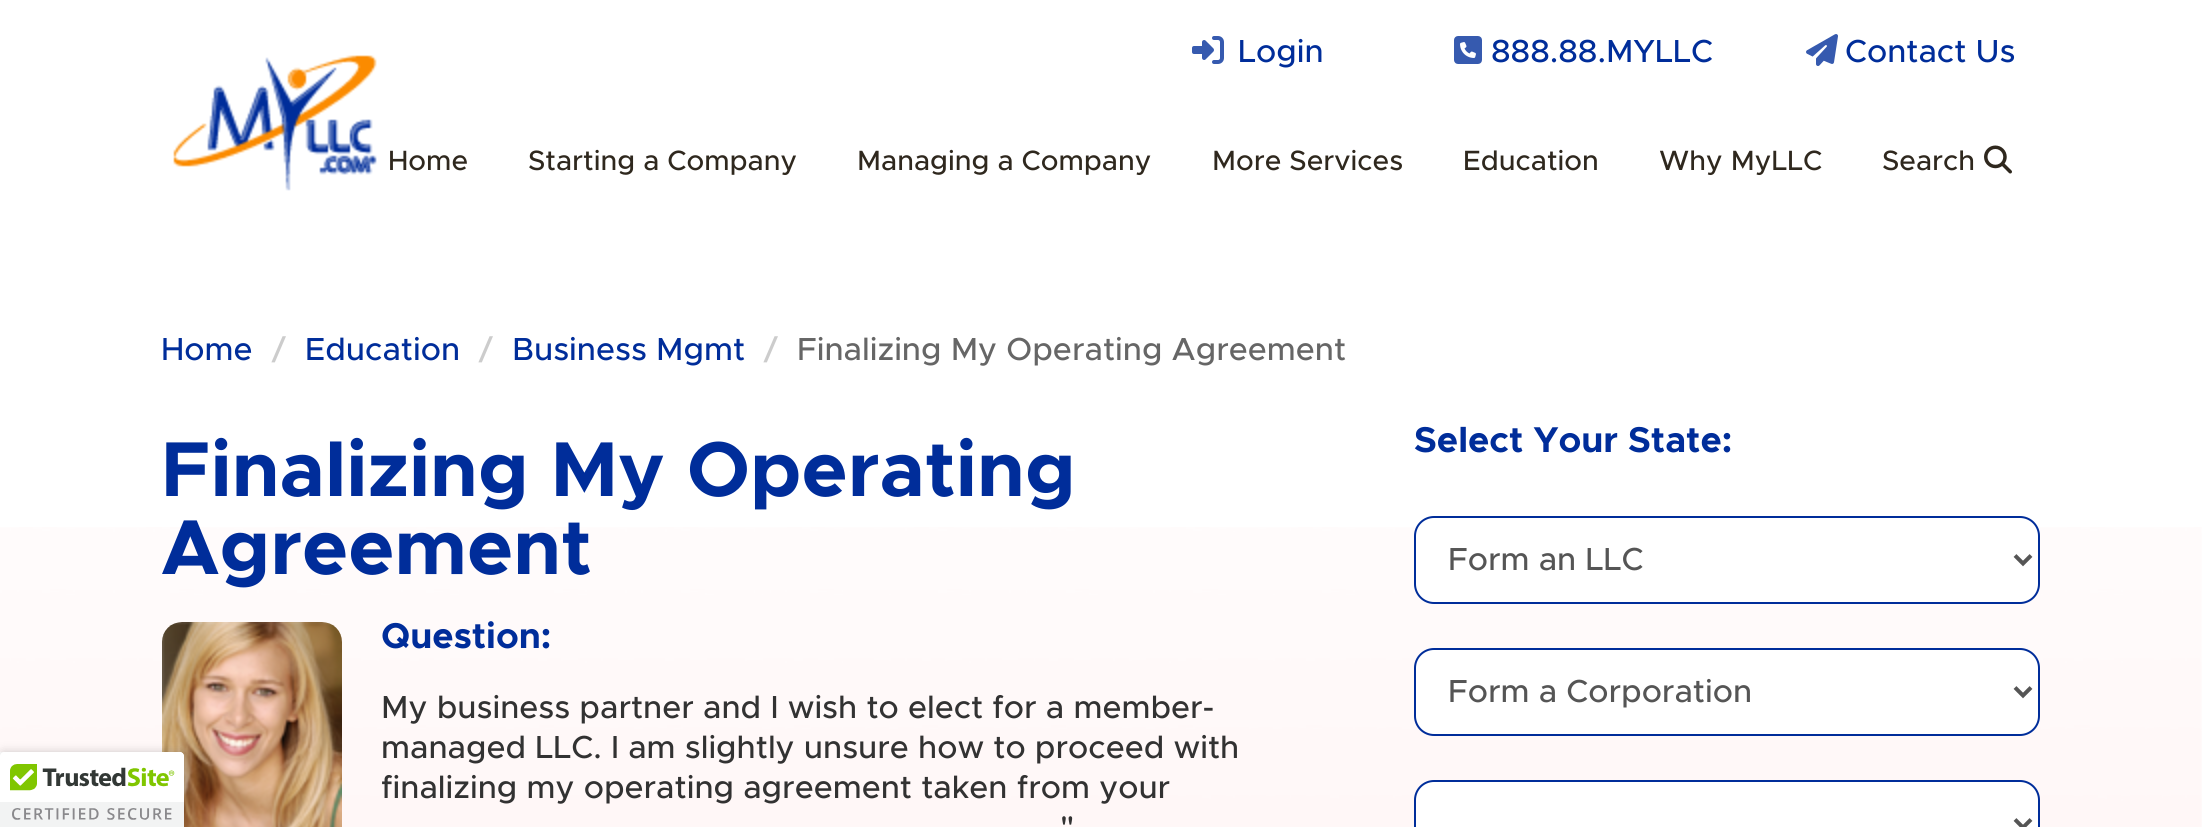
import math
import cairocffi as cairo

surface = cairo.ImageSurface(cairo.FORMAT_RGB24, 2202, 827)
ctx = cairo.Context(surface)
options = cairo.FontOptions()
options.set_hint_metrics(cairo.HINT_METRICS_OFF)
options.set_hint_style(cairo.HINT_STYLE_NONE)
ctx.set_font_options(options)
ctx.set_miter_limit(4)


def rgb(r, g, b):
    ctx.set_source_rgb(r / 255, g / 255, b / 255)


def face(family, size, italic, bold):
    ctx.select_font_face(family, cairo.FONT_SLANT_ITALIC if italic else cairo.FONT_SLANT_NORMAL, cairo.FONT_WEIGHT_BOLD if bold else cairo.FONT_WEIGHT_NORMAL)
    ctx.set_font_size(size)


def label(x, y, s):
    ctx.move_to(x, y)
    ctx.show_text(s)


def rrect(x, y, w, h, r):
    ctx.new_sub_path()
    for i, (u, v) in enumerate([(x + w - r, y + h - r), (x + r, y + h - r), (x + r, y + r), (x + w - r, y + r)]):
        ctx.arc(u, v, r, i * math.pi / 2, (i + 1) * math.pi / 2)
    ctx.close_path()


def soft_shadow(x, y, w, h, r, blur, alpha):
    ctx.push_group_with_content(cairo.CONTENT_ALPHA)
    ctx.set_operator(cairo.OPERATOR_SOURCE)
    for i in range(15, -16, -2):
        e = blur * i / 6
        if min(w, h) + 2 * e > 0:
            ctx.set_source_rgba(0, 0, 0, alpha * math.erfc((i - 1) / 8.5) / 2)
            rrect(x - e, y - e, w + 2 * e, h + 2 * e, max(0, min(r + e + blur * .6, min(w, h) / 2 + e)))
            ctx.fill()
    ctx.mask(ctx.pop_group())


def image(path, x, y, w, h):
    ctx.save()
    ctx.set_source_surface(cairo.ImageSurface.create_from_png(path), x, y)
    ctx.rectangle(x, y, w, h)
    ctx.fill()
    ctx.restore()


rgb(255, 255, 255)
ctx.paint()
image('image0.png', 173, 55, 204, 136)
image('image1.png', 1192, 36, 32, 28)
face('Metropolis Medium', 32, 0, 0)
rgb(0, 45, 154)
label(1238, 62, 'Login')
image('image2.png', 1454, 36, 28, 28)
label(1491, 62, '888.88.MYLLC')
image('image3.png', 1806, 34, 32, 32)
label(1845, 62, 'Contact Us')
face('Metropolis Medium', 28, 0, 0)
rgb(47, 40, 30)
label(388, 170, 'Home')
label(528, 170, 'Starting a Company')
label(857, 170, 'Managing a Company')
label(1212, 170, 'More Services')
label(1463, 170, 'Education')
label(1659, 170, 'Why MyLLC')
label(1882, 170, 'Search')
image('image4.png', 1984, 145, 28, 29)
image('image6.png', 0, 527, 2202, 300)
image('image7.png', 162, 622, 180, 205)
rgb(0, 0, 0)
soft_shadow(0, 752, 184, 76, 4, 5, 0.2)
rgb(255, 255, 255)
ctx.new_path()
ctx.move_to(0, 752)
ctx.line_to(180, 752)
ctx.curve_to(182, 752, 184, 754, 184, 756)
ctx.line_to(184, 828)
ctx.line_to(0, 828)
ctx.close_path()
ctx.fill()
image('image5.png', 0, 752, 184, 75)
face('Metropolis Medium', 32, 0, 0)
rgb(0, 45, 154)
label(161, 360, 'Home')
rgb(204, 204, 204)
label(272, 360, '/')
rgb(0, 45, 154)
label(305, 360, 'Education')
rgb(204, 204, 204)
label(479, 360, '/')
rgb(0, 45, 154)
label(512, 360, 'Business Mgmt')
rgb(204, 204, 204)
label(764, 360, '/')
rgb(102, 102, 102)
label(797, 360, 'Finalizing My Operating Agreement')
face('Metropolis', 78, 0, 1)
rgb(0, 45, 154)
label(161, 496, 'Finalizing My Operating')
label(161, 574, 'Agreement')
face('Metropolis', 36, 0, 1)
label(381, 648, 'Question:')
face('Metropolis Medium', 32, 0, 0)
rgb(50, 50, 50)
label(381, 718, 'My business partner and I wish to elect for a member-')
label(381, 758, 'managed LLC. I am slightly unsure how to proceed with')
label(381, 798, 'finalizing my operating agreement taken from your')
label(1060, 838, '"')
face('Metropolis', 36, 0, 1)
rgb(0, 45, 154)
label(1414, 452, 'Select Your State:')
rgb(255, 255, 255)
rrect(1415, 517, 624, 86, 19)
ctx.fill_preserve()
rgb(0, 45, 154)
ctx.stroke()
ctx.new_path()
ctx.move_to(2015, 555.5)
ctx.line_to(2023, 563.5)
ctx.line_to(2031, 555.5)
rgb(85, 85, 85)
ctx.set_line_width(4)
ctx.stroke()
face('Metropolis Medium', 32, 0, 0)
label(1448, 570, 'Form an LLC')
rgb(255, 255, 255)
rrect(1415, 649, 624, 86, 19)
ctx.fill_preserve()
rgb(0, 45, 154)
ctx.set_line_width(2)
ctx.stroke()
ctx.new_path()
ctx.move_to(2015, 687.5)
ctx.line_to(2023, 695.5)
ctx.line_to(2031, 687.5)
rgb(85, 85, 85)
ctx.set_line_width(4)
ctx.stroke()
label(1448, 702, 'Form a Corporation')
rgb(255, 255, 255)
ctx.new_path()
ctx.move_to(1434, 780)
ctx.line_to(2020, 780)
ctx.curve_to(2031, 780, 2040, 789, 2040, 800)
ctx.line_to(2040, 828)
ctx.line_to(1414, 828)
ctx.line_to(1414, 800)
ctx.curve_to(1414, 789, 1423, 780, 1434, 780)
ctx.close_path()
ctx.fill()
rrect(1415, 781, 624, 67, 19)
rgb(0, 45, 154)
ctx.set_line_width(2)
ctx.stroke()
ctx.new_path()
ctx.move_to(2015, 819.5)
ctx.line_to(2023, 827.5)
ctx.line_to(2031, 819.5)
rgb(85, 85, 85)
ctx.set_line_width(4)
ctx.stroke()
surface.write_to_png('render.png')
